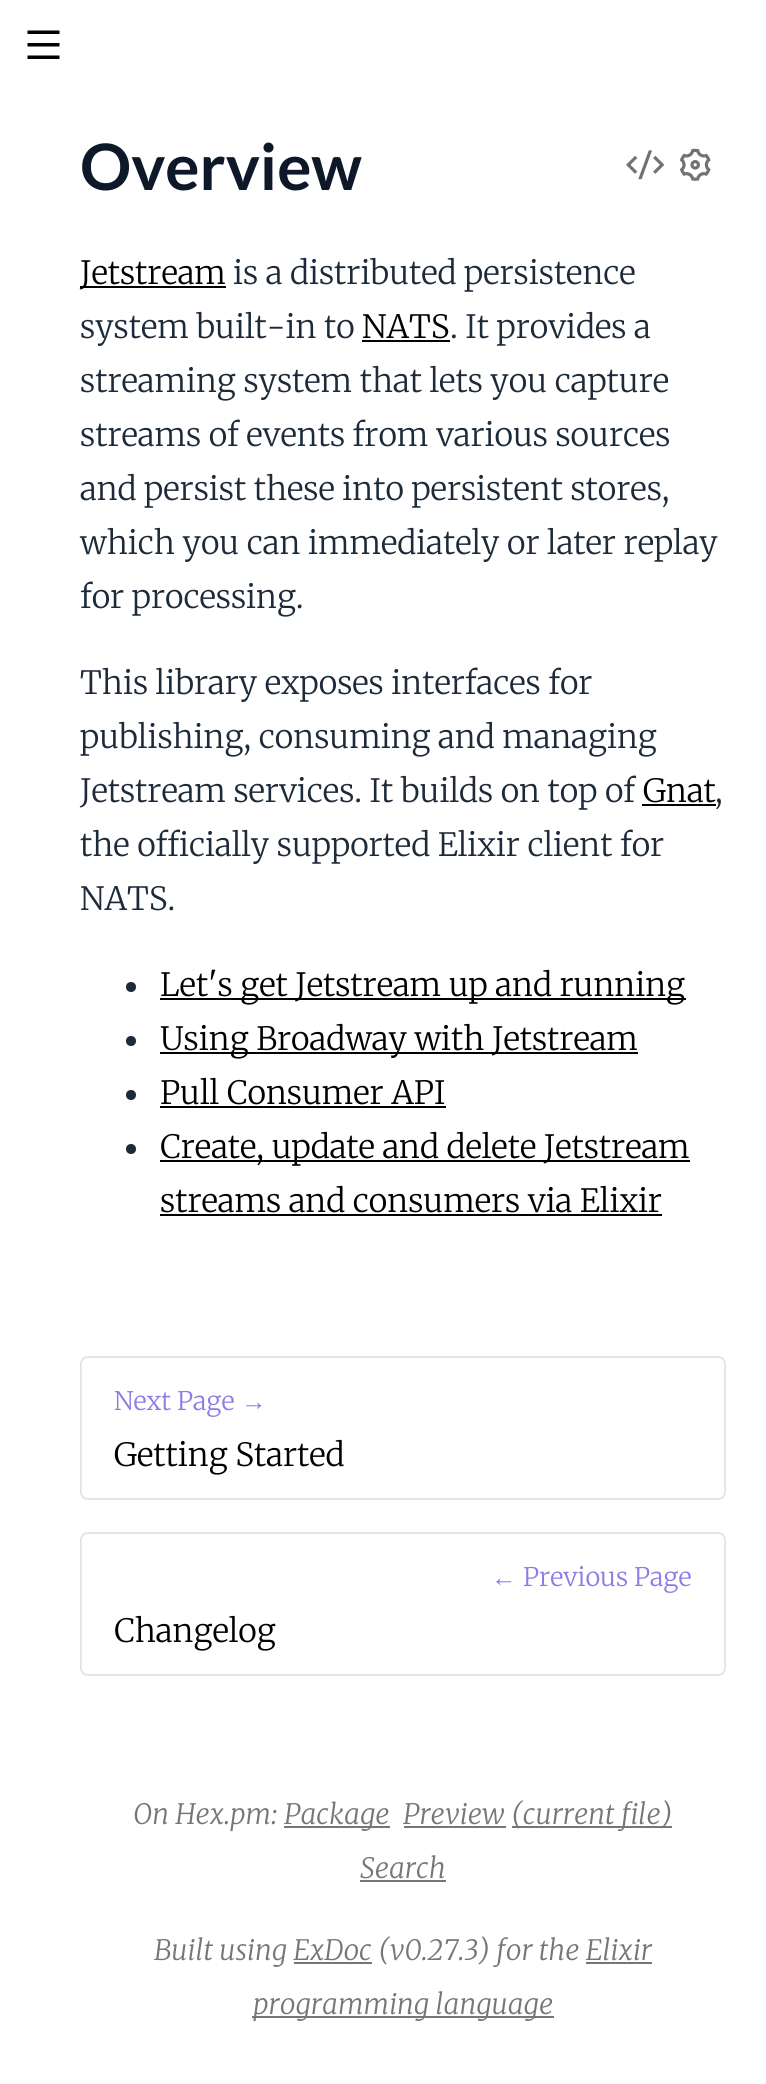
import math
import cairocffi as cairo

surface = cairo.ImageSurface(cairo.FORMAT_RGB24, 766, 2084)
ctx = cairo.Context(surface)
options = cairo.FontOptions()
options.set_hint_metrics(cairo.HINT_METRICS_OFF)
options.set_hint_style(cairo.HINT_STYLE_NONE)
ctx.set_font_options(options)
ctx.set_miter_limit(4)


def rgb(r, g, b):
    ctx.set_source_rgb(r / 255, g / 255, b / 255)


def face(family, size, italic, bold):
    ctx.select_font_face(family, cairo.FONT_SLANT_ITALIC if italic else cairo.FONT_SLANT_NORMAL, cairo.FONT_WEIGHT_BOLD if bold else cairo.FONT_WEIGHT_NORMAL)
    ctx.set_font_size(size)


def label(x, y, s):
    ctx.move_to(x, y)
    ctx.show_text(s)


def rect(x, y, w, h):
    ctx.rectangle(x, y, w, h)
    ctx.fill()


def rrect(x, y, w, h, r):
    ctx.new_sub_path()
    for i, (u, v) in enumerate([(x + w - r, y + h - r), (x + r, y + h - r), (x + r, y + r), (x + w - r, y + r)]):
        ctx.arc(u, v, r, i * math.pi / 2, (i + 1) * math.pi / 2)
    ctx.close_path()


def image(path, x, y, w, h):
    ctx.save()
    ctx.set_source_surface(cairo.ImageSurface.create_from_png(path), x, y)
    ctx.rectangle(x, y, w, h)
    ctx.fill()
    ctx.restore()


rgb(255, 255, 255)
ctx.paint()
rgb(0, 0, 0)
ctx.new_path()
ctx.move_to(27.5, 30.5)
ctx.line_to(59.5, 30.5)
ctx.line_to(59.5, 34)
ctx.line_to(27.5, 34)
ctx.close_path()
ctx.move_to(27.5, 43)
ctx.line_to(59.5, 43)
ctx.line_to(59.5, 46.5)
ctx.line_to(27.5, 46.5)
ctx.close_path()
ctx.move_to(27.5, 55.5)
ctx.line_to(59.5, 55.5)
ctx.line_to(59.5, 59)
ctx.line_to(27.5, 59)
ctx.close_path()
ctx.fill()
face('Lato', 64, 0, 1)
rgb(13, 24, 41)
label(80, 190, 'Overview')
image('image0.png', 626, 150, 39, 30)
image('image1.png', 679, 148, 32, 33)
rgb(0, 0, 0)
rect(80, 286, 146, 2)
face('Merriweather Light', 32, 0, 0)
label(80, 284, 'Jetstream')
rgb(28, 42, 58)
label(233, 284, 'is a distributed persistence')
label(80, 338, 'system built-in to')
rgb(0, 0, 0)
label(362, 338, 'NATS')
rect(362, 340, 88, 2)
rgb(28, 42, 58)
label(450, 338, '. It provides a')
label(80, 392, 'streaming system that lets you capture')
label(80, 446, 'streams of events from various sources')
label(80, 500, 'and persist these into persistent stores,')
label(80, 554, 'which you can immediately or later replay')
label(80, 608, 'for processing.')
label(80, 694, 'This library exposes interfaces for')
label(80, 748, 'publishing, consuming and managing')
label(80, 802, 'Jetstream services. It builds on top of')
rgb(0, 0, 0)
label(643, 802, 'Gnat')
rect(642, 804, 74, 2)
rgb(28, 42, 58)
label(715, 802, ',')
label(80, 856, 'the officially supported Elixir client for')
label(80, 910, 'NATS.')
ctx.new_path()
ctx.arc(131, 987, 5, 0, 2 * math.pi)
ctx.fill()
rgb(0, 0, 0)
rect(160, 998, 526, 2)
label(160, 996, 'Let\'s get Jetstream up and running')
rgb(28, 42, 58)
ctx.new_path()
ctx.arc(131, 1041, 5, 0, 2 * math.pi)
ctx.fill()
rgb(0, 0, 0)
rect(160, 1052, 478, 2)
label(160, 1050, 'Using Broadway with Jetstream')
rgb(28, 42, 58)
ctx.new_path()
ctx.arc(131, 1095, 5, 0, 2 * math.pi)
ctx.fill()
rgb(0, 0, 0)
label(160, 1104, 'Pull Consumer API')
rect(160, 1106, 286, 2)
rgb(28, 42, 58)
ctx.new_path()
ctx.arc(131, 1149, 5, 0, 2 * math.pi)
ctx.fill()
rgb(0, 0, 0)
rect(160, 1160, 530, 2)
label(160, 1158, 'Create, update and delete Jetstream')
label(160, 1212, 'streams and consumers via Elixir')
rect(160, 1214, 502, 2)
rrect(81, 1357, 644, 142, 7)
rgb(230, 230, 230)
ctx.stroke()
face('Merriweather Light', 25.5, 0, 0)
rgb(142, 124, 230)
label(114, 1410, 'Next Page')
face('Liberation Serif', 25.5, 0, 0)
label(241, 1410, '→')
face('Merriweather Light', 32, 0, 0)
rgb(0, 0, 0)
label(114, 1466, 'Getting Started')
rrect(81, 1533, 644, 142, 7)
rgb(230, 230, 230)
ctx.stroke()
face('Liberation Serif', 25.5, 0, 0)
rgb(142, 124, 230)
label(491, 1586, '←')
face('Merriweather Light', 25.5, 0, 0)
label(523, 1586, 'Previous Page')
face('Merriweather Light', 32, 0, 0)
rgb(0, 0, 0)
label(114, 1642, 'Changelog')
face('Merriweather Light', 28, 1, 0)
rgb(118, 118, 118)
label(133, 1824, 'On Hex.pm:')
rect(284, 1826, 106, 2)
label(284, 1824, 'Package')
label(403, 1824, 'Preview')
rect(404, 1826, 102, 2)
rect(512, 1826, 160, 2)
label(511, 1824, '(current file)')
label(360, 1878, 'Search')
rect(360, 1880, 86, 2)
label(154, 1960, 'Built using ExDoc (v0.27.3) for the Elixir')
rect(294, 1962, 78, 2)
rect(252, 2016, 302, 2)
label(253, 2014, 'programming language')
rect(586, 1962, 66, 2)
surface.write_to_png('render.png')
